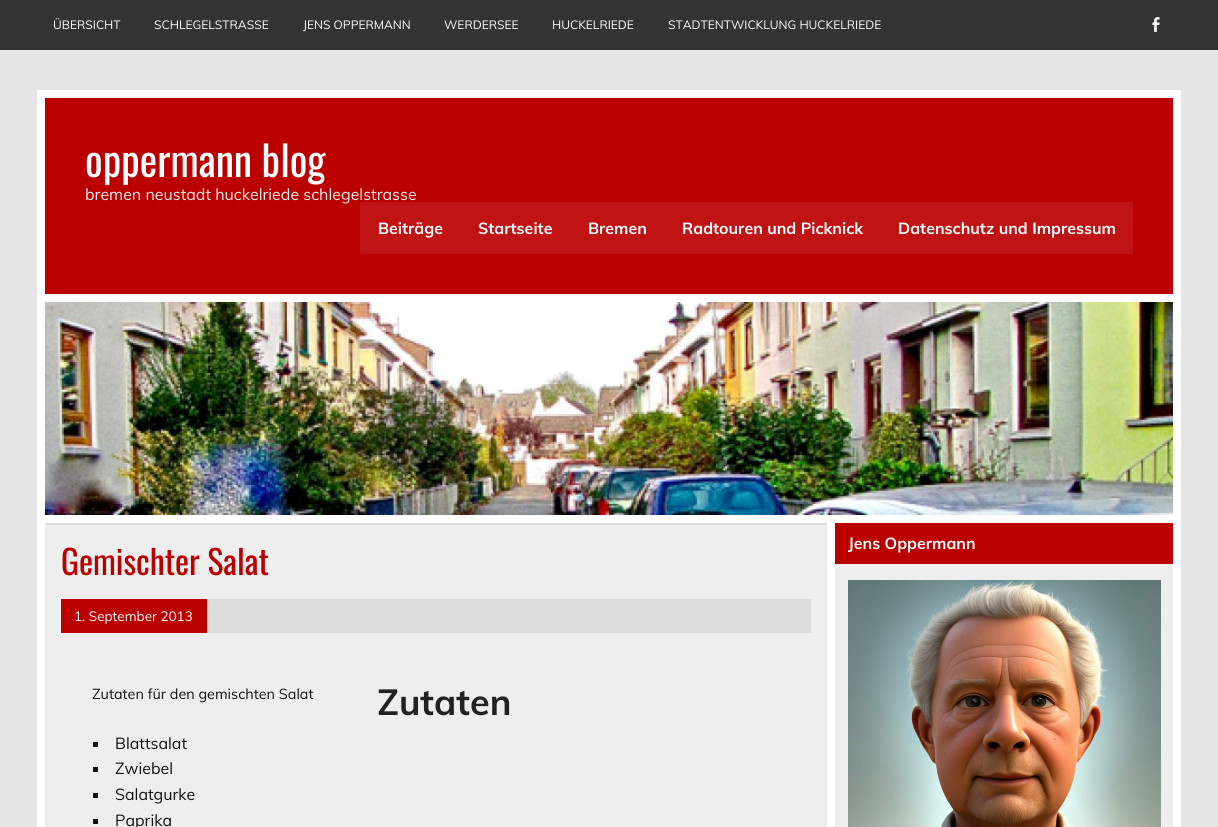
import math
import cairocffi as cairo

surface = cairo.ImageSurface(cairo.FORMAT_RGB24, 1218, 827)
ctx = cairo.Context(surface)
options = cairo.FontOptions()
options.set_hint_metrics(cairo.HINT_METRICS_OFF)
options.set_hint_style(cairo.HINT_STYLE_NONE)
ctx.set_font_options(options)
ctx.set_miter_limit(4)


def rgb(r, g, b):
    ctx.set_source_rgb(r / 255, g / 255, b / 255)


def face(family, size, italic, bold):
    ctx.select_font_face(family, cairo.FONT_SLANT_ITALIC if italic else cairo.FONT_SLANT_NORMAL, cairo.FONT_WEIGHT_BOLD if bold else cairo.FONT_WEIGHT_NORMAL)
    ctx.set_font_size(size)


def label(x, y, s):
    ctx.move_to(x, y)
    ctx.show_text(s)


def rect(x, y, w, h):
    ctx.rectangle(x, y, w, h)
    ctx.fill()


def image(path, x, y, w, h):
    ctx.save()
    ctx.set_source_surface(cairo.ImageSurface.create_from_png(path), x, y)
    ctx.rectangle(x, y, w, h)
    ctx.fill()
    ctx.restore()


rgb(229, 229, 229)
ctx.paint()
rgb(51, 51, 51)
rect(0, 0, 1218, 50)
face('Muli', 12, 0, 0)
rgb(255, 255, 255)
label(53, 29, 'ÜBERSICHT')
label(154, 29, 'SCHLEGELSTRASSE')
label(303, 29, 'JENS OPPERMANN')
label(444, 29, 'WERDERSEE')
label(552, 29, 'HUCKELRIEDE')
label(668, 29, 'STADTENTWICKLUNG HUCKELRIEDE')
image('image0.png', 1152, 17, 8, 15)
rect(37, 90, 1144, 737)
rgb(187, 0, 0)
rect(45, 98, 1128, 196)
face('Oswald', 41.5, 0, 0)
rgb(255, 255, 255)
label(85, 177, 'oppermann blog')
face('Muli', 16, 0, 0)
rgb(238, 238, 238)
label(85, 200, 'bremen neustadt huckelriede schlegelstrasse')
rgb(192, 20, 20)
rect(360, 202, 773, 52)
face('Muli', 16, 0, 1)
rgb(255, 255, 255)
label(378, 234, 'Beiträge')
label(478, 234, 'Startseite')
label(588, 234, 'Bremen')
label(682, 234, 'Radtouren und Picknick')
label(898, 234, 'Datenschutz und Impressum')
image('image1.png', 45, 302, 1128, 213)
rgb(238, 238, 238)
rect(835, 564, 338, 263)
rgb(187, 0, 0)
rect(835, 523, 338, 41)
rgb(255, 255, 255)
label(848, 549, 'Jens Oppermann')
image('image2.png', 848, 580, 313, 247)
rgb(238, 238, 238)
rect(45, 525, 782, 302)
rgb(221, 221, 221)
rect(45, 523, 782, 2)
face('Oswald', 33.5, 0, 0)
rgb(187, 0, 0)
label(61, 575, 'Gemischter Salat')
rgb(221, 221, 221)
rect(207, 599, 604, 34)
rgb(187, 0, 0)
rect(61, 599, 146, 34)
face('Muli', 13.5, 0, 0)
rgb(255, 255, 255)
label(74, 621, '1. September 2013')
face('Muli', 14.4, 0, 0)
rgb(17, 17, 17)
label(92, 699, 'Zutaten für den gemischten Salat')
face('Muli', 36, 0, 1)
rgb(34, 34, 34)
label(377, 715, 'Zutaten')
rgb(17, 17, 17)
rect(93, 742, 5, 5)
face('Muli', 16, 0, 0)
label(115, 749, 'Blattsalat')
rect(93, 767, 5, 5)
label(115, 774, 'Zwiebel')
rect(93, 793, 5, 5)
label(115, 800, 'Salatgurke')
rect(93, 819, 5, 5)
label(115, 826, 'Paprika')
surface.write_to_png('render.png')
